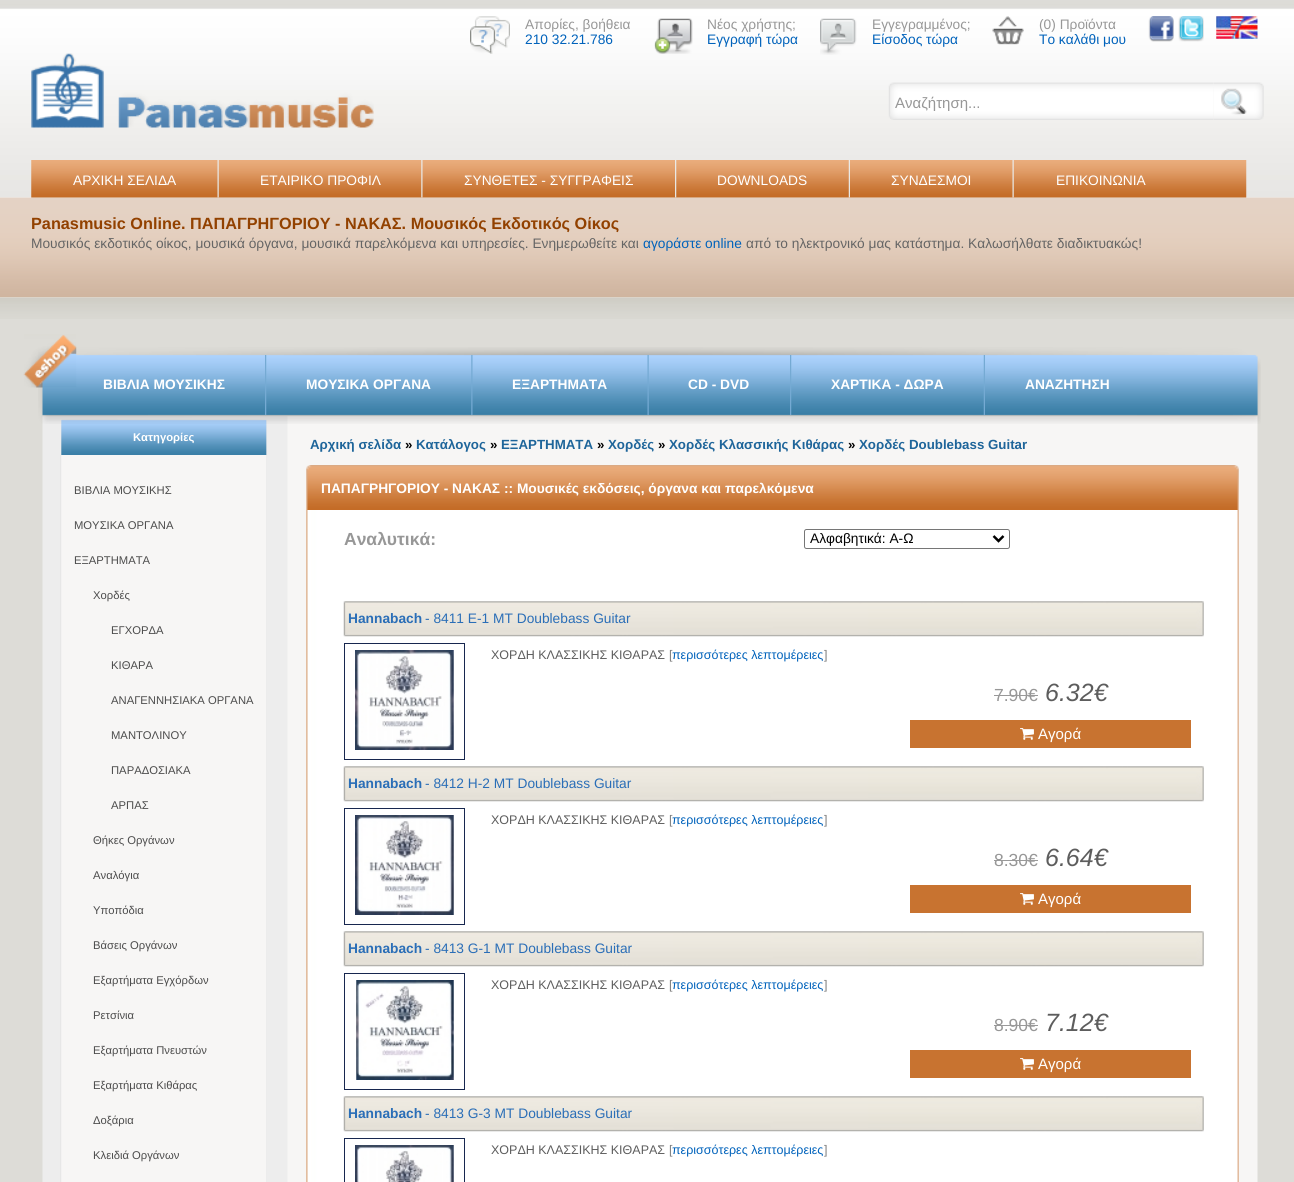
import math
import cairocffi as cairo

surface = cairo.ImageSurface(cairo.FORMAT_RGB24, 1294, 1182)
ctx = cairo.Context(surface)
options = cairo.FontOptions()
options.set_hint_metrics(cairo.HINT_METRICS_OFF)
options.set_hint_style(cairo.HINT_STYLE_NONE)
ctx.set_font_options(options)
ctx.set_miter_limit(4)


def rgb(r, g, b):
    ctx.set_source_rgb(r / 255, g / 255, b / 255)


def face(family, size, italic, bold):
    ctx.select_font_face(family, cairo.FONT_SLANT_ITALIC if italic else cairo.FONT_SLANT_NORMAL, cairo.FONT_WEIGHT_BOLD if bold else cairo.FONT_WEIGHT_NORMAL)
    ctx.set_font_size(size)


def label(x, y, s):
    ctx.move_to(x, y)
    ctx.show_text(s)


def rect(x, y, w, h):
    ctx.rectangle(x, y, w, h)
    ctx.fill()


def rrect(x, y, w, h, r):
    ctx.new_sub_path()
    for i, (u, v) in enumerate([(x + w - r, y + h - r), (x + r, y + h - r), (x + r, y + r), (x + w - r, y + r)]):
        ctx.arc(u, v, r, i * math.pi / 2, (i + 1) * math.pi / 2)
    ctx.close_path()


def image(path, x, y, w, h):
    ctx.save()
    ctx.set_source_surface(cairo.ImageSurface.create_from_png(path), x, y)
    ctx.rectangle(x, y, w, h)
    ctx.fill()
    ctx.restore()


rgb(255, 255, 255)
ctx.paint()
image('image0.png', 0, 0, 1294, 198)
image('image1.png', 31, 53, 343, 75)
image('image2.png', 470, 16, 40, 38)
face('Liberation Sans', 13.75, 0, 0)
rgb(151, 151, 151)
label(525, 29, 'Απορίες, βοήθεια')
rgb(0, 98, 187)
label(525, 44, '210 32.21.786')
image('image3.png', 654, 18, 39, 36)
rgb(151, 151, 151)
label(707, 29, 'Νέος χρήστης;')
rgb(0, 98, 187)
label(707, 44, 'Εγγραφή τώρα')
image('image4.png', 820, 18, 37, 37)
rgb(151, 151, 151)
label(872, 29, 'Εγγεγραμμένος;')
rgb(0, 98, 187)
label(872, 44, 'Είσοδος τώρα')
image('image5.png', 992, 16, 32, 29)
rgb(151, 151, 151)
label(1039, 29, '(0) Προϊόντα')
rgb(0, 98, 187)
label(1039, 44, 'Το καλάθι μου')
image('image6.png', 1148, 16, 26, 26)
image('image7.png', 1178, 16, 26, 26)
image('image8.png', 1216, 16, 42, 23)
image('image9.png', 888, 82, 326, 38)
ctx.save()
ctx.rectangle(895, 94, 313, 17)
ctx.clip()
face('Liberation Sans', 15, 0, 0)
rgb(151, 151, 151)
label(895, 108, 'Αναζήτηση...')
ctx.restore()
image('image10.png', 1214, 82, 50, 38)
image('image16.png', 0, 197, 1294, 101)
image('image11.png', 31, 160, 1216, 38)
rgb(255, 255, 255)
label(73, 185, 'ΑΡΧΙΚΗ ΣΕΛΙΔΑ')
image('image12.png', 217, 160, 2, 38)
label(260, 185, 'ΕΤΑΙΡΙΚΟ ΠΡΟΦΙΛ')
image('image13.png', 421, 160, 2, 38)
label(464, 185, 'ΣΥΝΘΕΤΕΣ - ΣΥΓΓΡΑΦΕΙΣ')
image('image14.png', 675, 160, 2, 38)
label(717, 185, 'DOWNLOADS')
image('image15.png', 848, 160, 2, 38)
label(891, 185, 'ΣΥΝΔΕΣΜΟΙ')
image('image12.png', 1012, 160, 2, 38)
label(1056, 185, 'ΕΠΙΚΟΙΝΩΝΙΑ')
face('Liberation Sans', 16.25, 0, 1)
rgb(146, 65, 0)
label(31, 229, 'Panasmusic Online. ΠΑΠΑΓΡΗΓΟΡΙΟΥ - ΝΑΚΑΣ. Μουσικός Εκδοτικός Οίκος')
face('Liberation Sans', 13.75, 0, 0)
rgb(101, 101, 101)
label(31, 248, 'Μουσικός εκδοτικός οίκος, μουσικά όργανα, μουσικά παρελκόμενα και υπηρεσίες. Ενημερωθείτε και')
rgb(0, 98, 187)
label(643, 248, 'αγοράστε online')
rgb(101, 101, 101)
label(746, 248, 'από το ηλεκτρονικό μας κατάστημα. Καλωσήλθατε διαδικτυακώς!')
rgb(221, 220, 215)
rect(0, 319, 1294, 863)
image('image17.png', 0, 297, 1294, 22)
image('image25.png', 42, 416, 1216, 766)
image('image26.png', 61, 419, 206, 36)
image('image19.png', 38, 347, 1223, 77)
image('image18.png', 23, 334, 54, 54)
face('Liberation Sans', 13.75, 0, 1)
rgb(255, 255, 255)
label(103, 389, 'ΒΙΒΛΙΑ ΜΟΥΣΙΚΗΣ')
image('image20.png', 265, 355, 2, 60)
label(306, 389, 'ΜΟΥΣΙΚΑ ΟΡΓΑΝΑ')
image('image21.png', 471, 355, 2, 60)
label(512, 389, 'ΕΞΑΡΤΗΜΑΤΑ')
image('image22.png', 647, 355, 2, 60)
label(688, 389, 'CD - DVD')
image('image23.png', 790, 355, 2, 60)
label(831, 389, 'ΧΑΡΤΙΚΑ - ΔΩΡΑ')
image('image24.png', 983, 355, 2, 60)
label(1025, 389, 'ΑΝΑΖΗΤΗΣΗ')
face('Liberation Sans', 11.25, 0, 1)
label(133, 441, 'Κατηγορίες')
image('image27.png', 60, 455, 207, 727)
face('Liberation Sans', 11.25, 0, 0)
rgb(76, 76, 76)
label(74, 494, 'ΒΙΒΛΙΑ ΜΟΥΣΙΚΗΣ')
label(74, 529, 'ΜΟΥΣΙΚΑ ΟΡΓΑΝΑ')
label(74, 564, 'ΕΞΑΡΤΗΜΑΤΑ')
label(93, 599, 'Χορδές')
label(111, 634, 'ΕΓΧΟΡΔΑ')
label(111, 669, 'ΚΙΘΑΡΑ')
label(111, 704, 'ΑΝΑΓΕΝΝΗΣΙΑΚΑ ΟΡΓΑΝΑ')
label(111, 739, 'ΜΑΝΤΟΛΙΝΟΥ')
label(111, 774, 'ΠΑΡΑΔΟΣΙΑΚΑ')
label(111, 809, 'ΑΡΠΑΣ')
label(93, 844, 'Θήκες Οργάνων')
label(93, 879, 'Αναλόγια')
label(93, 914, 'Υποπόδια')
label(93, 949, 'Βάσεις Οργάνων')
label(93, 984, 'Εξαρτήματα Εγχόρδων')
label(93, 1019, 'Ρετσίνια')
label(93, 1054, 'Εξαρτήματα Πνευστών')
label(93, 1089, 'Εξαρτήματα Κιθάρας')
label(93, 1124, 'Δοξάρια')
label(93, 1159, 'Κλειδιά Οργάνων')
face('Liberation Sans', 13.3, 0, 1)
rgb(30, 101, 154)
label(310, 449, 'Αρχική σελίδα')
rgb(0, 0, 0)
label(405, 449, '»')
rgb(30, 101, 154)
label(416, 449, 'Κατάλογος')
rgb(0, 0, 0)
label(490, 449, '»')
rgb(30, 101, 154)
label(501, 449, 'ΕΞΑΡΤΗΜΑΤΑ')
rgb(0, 0, 0)
label(597, 449, '»')
rgb(30, 101, 154)
label(608, 449, 'Χορδές')
rgb(0, 0, 0)
label(658, 449, '»')
rgb(30, 101, 154)
label(669, 449, 'Χορδές Κλασσικής Κιθάρας')
rgb(0, 0, 0)
label(848, 449, '»')
rgb(30, 101, 154)
label(859, 449, 'Χορδές Doublebass Guitar')
image('image28.png', 306, 465, 933, 45)
face('Liberation Sans', 13.75, 0, 1)
rgb(255, 255, 255)
label(321, 493, 'ΠΑΠΑΓΡΗΓΟΡΙΟΥ - ΝΑΚΑΣ :: Μουσικές εκδόσεις, όργανα και παρελκόμενα')
image('image29.png', 306, 510, 933, 672)
face('Liberation Sans', 17.5, 0, 1)
rgb(151, 151, 151)
label(344, 545, 'Αναλυτικά:')
rrect(804.5, 529.5, 205, 19, 2)
rgb(118, 118, 118)
ctx.set_line_width(1)
ctx.stroke()
ctx.new_path()
ctx.move_to(993.5, 536)
ctx.line_to(998.5, 541)
ctx.line_to(1003.5, 536)
rgb(0, 0, 0)
ctx.set_line_width(2.5)
ctx.stroke()
face('Liberation Sans', 13.75, 0, 0)
label(810, 543, 'Αλφαβητικά: Α-Ω')
image('image30.png', 343, 601, 861, 36)
face('Liberation Sans', 13.75, 0, 1)
rgb(42, 110, 183)
label(348, 623, 'Hannabach')
face('Liberation Sans', 13.75, 0, 0)
label(425, 623, '- 8411 E-1 MT Doublebass Guitar')
rgb(23, 39, 79)
rect(344, 643, 121, 117)
rgb(255, 255, 255)
rect(345, 644, 119, 115)
image('image31.png', 355, 650, 99, 100)
face('Liberation Sans', 12.5, 0, 0)
rgb(93, 93, 93)
label(491, 659, 'ΧΟΡΔΗ ΚΛΑΣΣΙΚΗΣ ΚΙΘΑΡΑΣ')
rgb(128, 128, 128)
label(669, 659, '[')
rgb(0, 98, 187)
label(672, 659, 'περισσότερες λεπτομέρειες')
rgb(128, 128, 128)
label(824, 659, ']')
face('Liberation Sans', 17.5, 0, 0)
rgb(151, 151, 151)
label(994, 701, '7.90€')
rgb(153, 153, 153)
rect(994, 695, 44, 1)
face('Liberation Sans', 25, 1, 0)
rgb(93, 93, 93)
label(1045, 701, '6.32€')
rgb(200, 115, 48)
rect(910, 720, 281, 28)
image('image32.png', 1020, 728, 14, 12)
face('Liberation Sans', 15, 0, 0)
rgb(255, 255, 255)
label(1038, 739, 'Αγορά')
image('image30.png', 343, 766, 861, 36)
face('Liberation Sans', 13.75, 0, 1)
rgb(42, 110, 183)
label(348, 788, 'Hannabach')
face('Liberation Sans', 13.75, 0, 0)
label(425, 788, '- 8412 H-2 MT Doublebass Guitar')
rgb(23, 39, 79)
rect(344, 808, 121, 117)
rgb(255, 255, 255)
rect(345, 809, 119, 115)
image('image33.png', 355, 815, 99, 100)
face('Liberation Sans', 12.5, 0, 0)
rgb(93, 93, 93)
label(491, 824, 'ΧΟΡΔΗ ΚΛΑΣΣΙΚΗΣ ΚΙΘΑΡΑΣ')
rgb(128, 128, 128)
label(669, 824, '[')
rgb(0, 98, 187)
label(672, 824, 'περισσότερες λεπτομέρειες')
rgb(128, 128, 128)
label(824, 824, ']')
face('Liberation Sans', 17.5, 0, 0)
rgb(151, 151, 151)
label(994, 866, '8.30€')
rgb(153, 153, 153)
rect(994, 860, 44, 1)
face('Liberation Sans', 25, 1, 0)
rgb(93, 93, 93)
label(1045, 866, '6.64€')
rgb(200, 115, 48)
rect(910, 885, 281, 28)
image('image32.png', 1020, 893, 14, 12)
face('Liberation Sans', 15, 0, 0)
rgb(255, 255, 255)
label(1038, 904, 'Αγορά')
image('image30.png', 343, 931, 861, 36)
face('Liberation Sans', 13.75, 0, 1)
rgb(42, 110, 183)
label(348, 953, 'Hannabach')
face('Liberation Sans', 13.75, 0, 0)
label(425, 953, '- 8413 G-1 MT Doublebass Guitar')
rgb(23, 39, 79)
rect(344, 973, 121, 117)
rgb(255, 255, 255)
rect(345, 974, 119, 115)
image('image34.png', 356, 980, 98, 100)
face('Liberation Sans', 12.5, 0, 0)
rgb(93, 93, 93)
label(491, 989, 'ΧΟΡΔΗ ΚΛΑΣΣΙΚΗΣ ΚΙΘΑΡΑΣ')
rgb(128, 128, 128)
label(669, 989, '[')
rgb(0, 98, 187)
label(672, 989, 'περισσότερες λεπτομέρειες')
rgb(128, 128, 128)
label(824, 989, ']')
face('Liberation Sans', 17.5, 0, 0)
rgb(151, 151, 151)
label(994, 1031, '8.90€')
rgb(153, 153, 153)
rect(994, 1025, 44, 1)
face('Liberation Sans', 25, 1, 0)
rgb(93, 93, 93)
label(1045, 1031, '7.12€')
rgb(200, 115, 48)
rect(910, 1050, 281, 28)
image('image32.png', 1020, 1058, 14, 12)
face('Liberation Sans', 15, 0, 0)
rgb(255, 255, 255)
label(1038, 1069, 'Αγορά')
image('image30.png', 343, 1096, 861, 36)
face('Liberation Sans', 13.75, 0, 1)
rgb(42, 110, 183)
label(348, 1118, 'Hannabach')
face('Liberation Sans', 13.75, 0, 0)
label(425, 1118, '- 8413 G-3 MT Doublebass Guitar')
rgb(23, 39, 79)
rect(344, 1138, 121, 44)
rgb(255, 255, 255)
rect(345, 1139, 119, 43)
image('image35.png', 355, 1145, 99, 37)
face('Liberation Sans', 12.5, 0, 0)
rgb(93, 93, 93)
label(491, 1154, 'ΧΟΡΔΗ ΚΛΑΣΣΙΚΗΣ ΚΙΘΑΡΑΣ')
rgb(128, 128, 128)
label(669, 1154, '[')
rgb(0, 98, 187)
label(672, 1154, 'περισσότερες λεπτομέρειες')
rgb(128, 128, 128)
label(824, 1154, ']')
surface.write_to_png('render.png')
